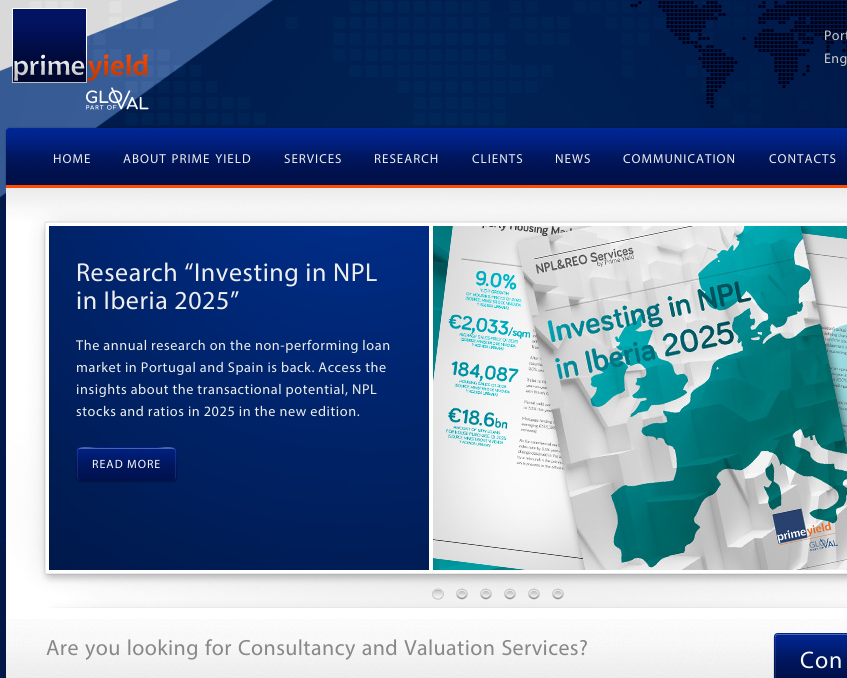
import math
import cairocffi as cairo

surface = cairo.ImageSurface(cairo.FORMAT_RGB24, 847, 678)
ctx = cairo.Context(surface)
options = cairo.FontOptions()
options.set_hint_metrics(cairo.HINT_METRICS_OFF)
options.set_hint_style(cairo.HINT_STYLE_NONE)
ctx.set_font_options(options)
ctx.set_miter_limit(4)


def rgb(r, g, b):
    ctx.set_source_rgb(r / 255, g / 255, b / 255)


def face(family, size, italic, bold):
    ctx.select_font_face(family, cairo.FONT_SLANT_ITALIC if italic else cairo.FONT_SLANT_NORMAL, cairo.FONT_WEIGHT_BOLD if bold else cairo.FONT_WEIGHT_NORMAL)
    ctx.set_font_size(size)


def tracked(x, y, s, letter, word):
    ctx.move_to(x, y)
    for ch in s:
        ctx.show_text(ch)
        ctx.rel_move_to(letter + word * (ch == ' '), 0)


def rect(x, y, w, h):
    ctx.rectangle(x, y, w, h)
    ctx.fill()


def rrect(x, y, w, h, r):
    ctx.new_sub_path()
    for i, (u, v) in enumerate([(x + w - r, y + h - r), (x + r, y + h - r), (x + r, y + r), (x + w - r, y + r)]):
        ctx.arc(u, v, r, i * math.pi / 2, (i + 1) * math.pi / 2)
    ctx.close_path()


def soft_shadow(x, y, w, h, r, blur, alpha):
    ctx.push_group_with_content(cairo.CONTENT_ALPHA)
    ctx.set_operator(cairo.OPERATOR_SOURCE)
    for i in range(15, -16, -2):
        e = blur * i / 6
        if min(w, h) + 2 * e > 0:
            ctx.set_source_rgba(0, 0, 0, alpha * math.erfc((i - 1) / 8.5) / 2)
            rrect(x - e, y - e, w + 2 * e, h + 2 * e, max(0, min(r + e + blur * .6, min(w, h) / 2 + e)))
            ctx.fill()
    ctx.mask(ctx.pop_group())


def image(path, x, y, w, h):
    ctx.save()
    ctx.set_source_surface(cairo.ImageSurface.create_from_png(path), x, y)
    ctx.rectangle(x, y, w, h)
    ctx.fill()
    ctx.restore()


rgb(255, 255, 255)
ctx.paint()
image('image0.png', 0, 0, 847, 678)
image('image1.png', 12, 8, 137, 102)
face('Myriad', 14, 0, 0)
rgb(204, 204, 204)
tracked(824, 40, 'Port', 0.4, 0)
tracked(824, 63, 'Eng', 0.4, 0)
rgb(0, 0, 0)
soft_shadow(6, 128, 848, 60, 4, 1, 0.3)
image('image2.png', 6, 128, 841, 57)
rgb(255, 76, 0)
rect(6, 185, 841, 3)
face('Myriad', 13, 0, 0)
rgb(238, 238, 238)
tracked(53, 163, 'HOME', 1, 0)
tracked(123, 163, 'ABOUT PRIME YIELD', 1, 1)
tracked(284, 163, 'SERVICES', 1, 0)
tracked(374, 163, 'RESEARCH', 1, 0)
tracked(472, 163, 'CLIENTS', 1, 0)
tracked(555, 163, 'NEWS', 1, 0)
tracked(623, 163, 'COMMUNICATION', 1, 0)
tracked(769, 163, 'CONTACTS', 1, 0)
rgb(255, 255, 255)
rect(6, 188, 841, 420)
image('image3.png', 6, 188, 841, 420)
rgb(0, 51, 153)
rect(49, 226, 380, 344)
image('image4.png', 49, 226, 380, 344)
image('image5.png', 433, 226, 414, 344)
face('Myriad', 26, 0, 0)
rgb(238, 238, 238)
tracked(76, 281, 'Research “Investing in NPL', 0.6, -0.25)
tracked(76, 309, 'in Iberia 2025”', 0.6, -0.25)
face('Myriad', 14.25, 0, 0)
tracked(76, 350, 'The annual research on the non-performing loan', 0.6, -0.25)
tracked(76, 372, 'market in Portugal and Spain is back. Access the', 0.6, -0.25)
tracked(76, 394, 'insights about the transactional potential, NPL', 0.6, -0.25)
tracked(76, 416, 'stocks and ratios in 2025 in the new edition.', 0.6, -0.25)
rgb(0, 0, 0)
soft_shadow(76, 448, 101, 34, 4, 0.5, 0.3)
image('image6.png', 76, 447, 101, 34)
rgb(77, 99, 167)
ctx.new_path()
ctx.move_to(80, 449)
ctx.line_to(173, 449)
ctx.curve_to(175, 449, 176, 450, 176, 452)
ctx.curve_to(176, 444, 160, 448, 158, 448)
ctx.line_to(96, 448)
ctx.curve_to(93, 448, 77, 444, 77, 452)
ctx.curve_to(77, 450, 78, 449, 80, 449)
ctx.close_path()
ctx.fill()
ctx.set_source_rgba(1, 1, 1, 0.1)
ctx.new_path()
ctx.move_to(172, 480)
ctx.curve_to(177, 480, 176, 476.5, 176, 472.5)
ctx.line_to(176, 455.5)
ctx.curve_to(176, 451.5, 177, 448, 172, 448)
ctx.curve_to(174, 448, 175, 449, 175, 451)
ctx.line_to(175, 477)
ctx.curve_to(175, 479, 174, 480, 172, 480)
ctx.close_path()
ctx.fill()
ctx.new_path()
ctx.move_to(80, 448)
ctx.curve_to(78.5, 448, 77, 449.5, 77, 451)
ctx.line_to(77, 477)
ctx.curve_to(77, 478.5, 78.5, 480, 80, 480)
ctx.line_to(81, 480)
ctx.curve_to(79, 480, 78, 479, 78, 477)
ctx.line_to(78, 451)
ctx.curve_to(78, 449, 79, 448, 81, 448)
ctx.close_path()
ctx.fill()
face('Myriad', 12, 0, 0)
rgb(248, 248, 248)
tracked(92, 468, 'READ MORE', 1, -0.25)
image('image7.png', 432, 588, 12, 12)
image('image8.png', 456, 588, 12, 12)
image('image9.png', 480, 588, 12, 12)
image('image10.png', 504, 588, 12, 12)
image('image11.png', 528, 588, 12, 12)
image('image12.png', 552, 588, 12, 12)
rgb(255, 255, 255)
rect(6, 608, 841, 70)
image('image13.png', 6, 619, 841, 59)
face('Myriad', 22, 0, 0)
rgb(136, 136, 136)
tracked(46, 655, 'Are you looking for Consultancy and Valuation Services?', 0.4, 1)
rgb(0, 0, 0)
soft_shadow(774, 634, 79, 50, 4, 0.5, 0.3)
image('image14.png', 774, 633, 73, 45)
rgb(77, 102, 177)
ctx.new_path()
ctx.move_to(778, 635)
ctx.line_to(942, 635)
ctx.curve_to(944, 635, 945, 636, 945, 638)
ctx.line_to(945, 637)
ctx.curve_to(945, 635, 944, 634, 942, 634)
ctx.line_to(778, 634)
ctx.curve_to(776, 634, 775, 635, 775, 637)
ctx.line_to(775, 638)
ctx.curve_to(775, 636, 776, 635, 778, 635)
ctx.close_path()
ctx.fill()
ctx.set_source_rgba(1, 1, 1, 0.1)
ctx.new_path()
ctx.move_to(778, 634)
ctx.curve_to(776, 634, 775, 635, 775, 637)
ctx.line_to(775, 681)
ctx.curve_to(775, 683, 776, 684, 778, 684)
ctx.line_to(779, 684)
ctx.curve_to(777, 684, 776, 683, 776, 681)
ctx.line_to(776, 637)
ctx.curve_to(776, 635, 777, 634, 779, 634)
ctx.close_path()
ctx.fill()
face('Myriad', 24, 0, 0)
rgb(248, 248, 248)
tracked(800, 668, 'Con', 1, 1)
surface.write_to_png('render.png')
